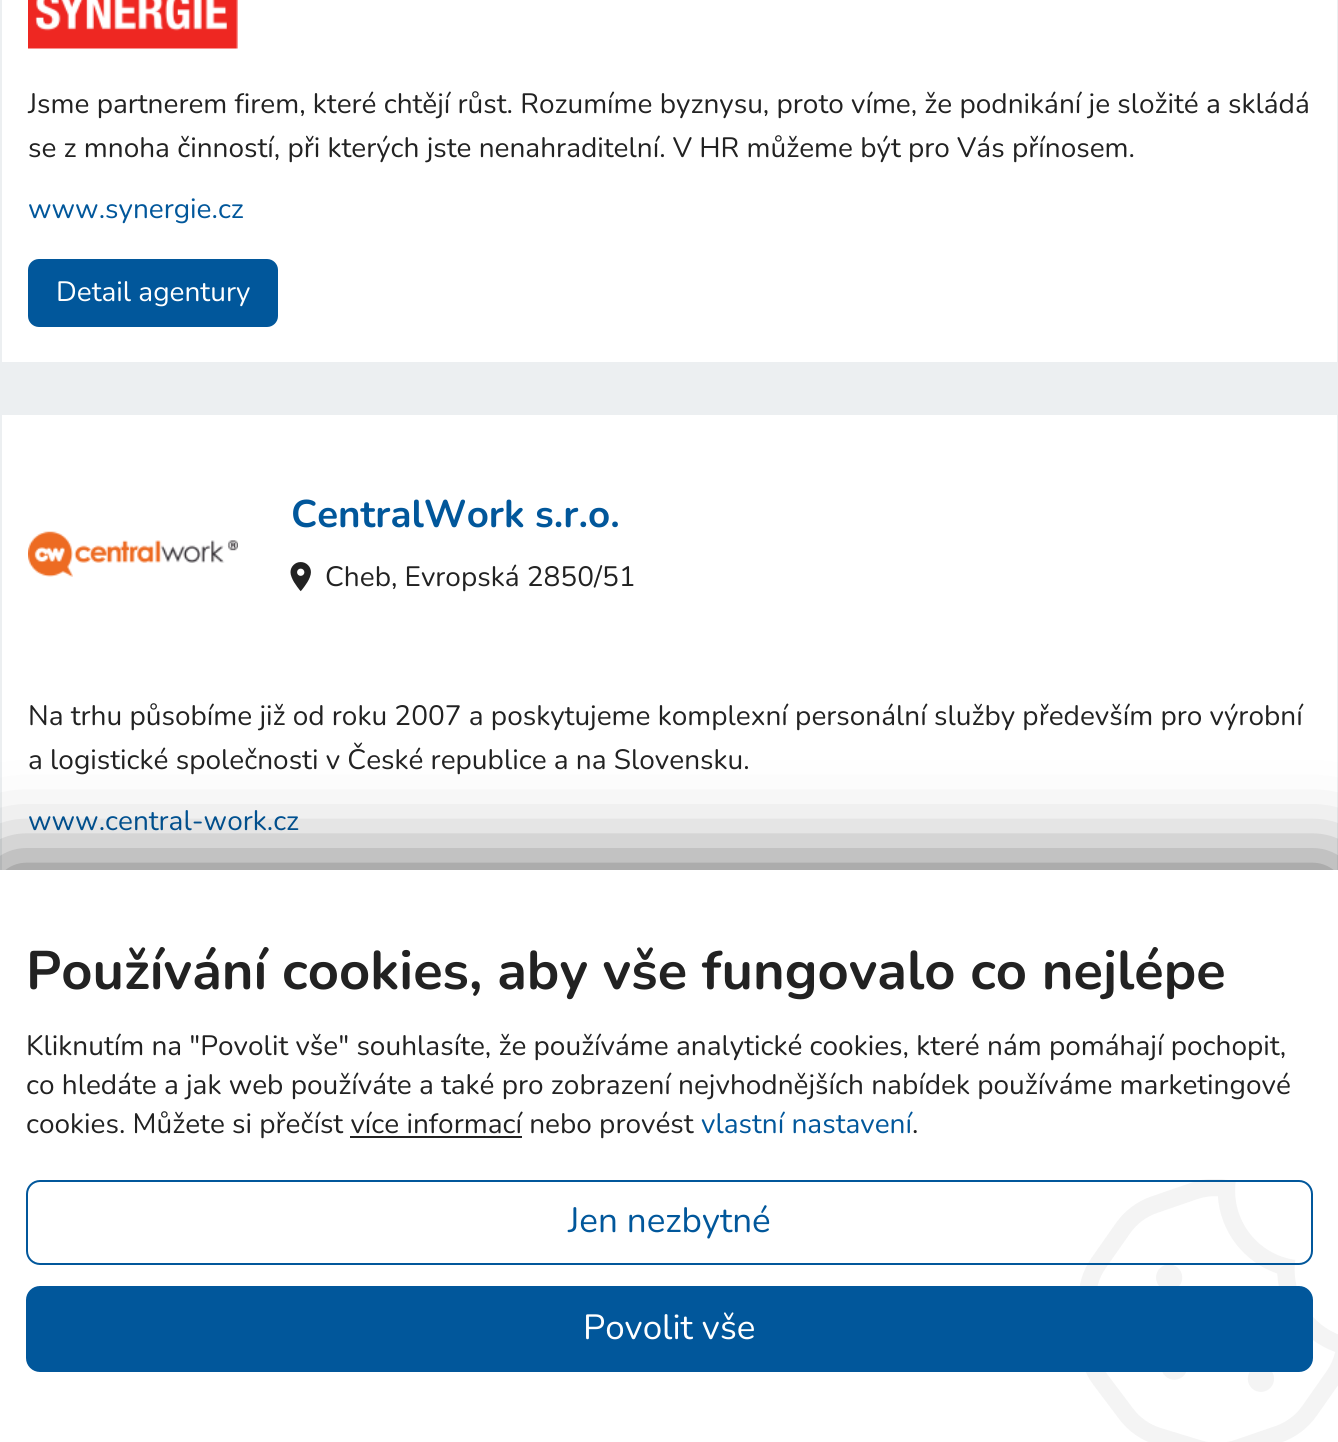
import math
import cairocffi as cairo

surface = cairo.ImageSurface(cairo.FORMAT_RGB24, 1338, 1442)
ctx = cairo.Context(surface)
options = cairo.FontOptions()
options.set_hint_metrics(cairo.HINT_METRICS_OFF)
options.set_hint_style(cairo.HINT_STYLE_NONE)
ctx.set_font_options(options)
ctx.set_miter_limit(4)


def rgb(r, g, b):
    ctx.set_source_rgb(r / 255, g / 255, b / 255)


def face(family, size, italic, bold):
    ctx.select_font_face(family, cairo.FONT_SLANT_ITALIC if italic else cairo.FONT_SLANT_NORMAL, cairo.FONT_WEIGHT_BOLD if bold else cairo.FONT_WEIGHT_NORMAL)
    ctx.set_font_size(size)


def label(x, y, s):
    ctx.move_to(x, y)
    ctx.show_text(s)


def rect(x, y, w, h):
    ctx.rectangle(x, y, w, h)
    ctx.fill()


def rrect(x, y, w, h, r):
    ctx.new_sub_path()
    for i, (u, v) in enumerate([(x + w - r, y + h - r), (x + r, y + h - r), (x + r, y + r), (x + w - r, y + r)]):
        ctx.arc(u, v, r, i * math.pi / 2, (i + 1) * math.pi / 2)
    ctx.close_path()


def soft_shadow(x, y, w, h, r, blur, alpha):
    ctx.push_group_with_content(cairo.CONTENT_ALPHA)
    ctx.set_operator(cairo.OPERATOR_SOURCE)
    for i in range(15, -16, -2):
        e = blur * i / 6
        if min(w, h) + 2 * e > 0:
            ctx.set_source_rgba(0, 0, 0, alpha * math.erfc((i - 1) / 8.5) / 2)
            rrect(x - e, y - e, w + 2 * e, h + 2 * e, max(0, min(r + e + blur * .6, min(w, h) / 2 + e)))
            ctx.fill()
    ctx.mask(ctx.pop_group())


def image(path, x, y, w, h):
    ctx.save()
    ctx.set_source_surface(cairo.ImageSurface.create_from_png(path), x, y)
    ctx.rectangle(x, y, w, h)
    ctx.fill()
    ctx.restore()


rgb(236, 239, 241)
ctx.paint()
rgb(255, 255, 255)
rect(2, 0, 1335, 362)
image('image0.png', 28, 0, 210, 49)
face('Nunito', 28, 0, 0)
rgb(34, 34, 34)
label(28, 113, 'Jsme partnerem firem, které chtějí růst. Rozumíme byznysu, proto víme, že podnikání je složité a skládá')
label(28, 157, 'se z mnoha činností, při kterých jste nenahraditelní. V HR můžeme být pro Vás přínosem.')
rgb(1, 87, 155)
label(28, 218, 'www.synergie.cz')
rrect(29, 260, 248, 66, 10)
ctx.fill_preserve()
ctx.stroke()
rgb(255, 255, 255)
label(56, 301, 'Detail agentury')
rect(2, 415, 1335, 455)
image('image1.png', 28, 531, 210, 46)
face('Nunito', 38.5, 0, 1)
rgb(1, 87, 155)
label(291, 527, 'CentralWork s.r.o.')
image('image2.png', 290, 562, 21, 30)
face('Nunito', 28, 0, 0)
rgb(34, 34, 34)
label(325, 586, 'Cheb, Evropská 2850/51')
label(28, 725, 'Na trhu působíme již od roku 2007 a poskytujeme komplexní personální služby především pro výrobní')
label(28, 769, 'a logistické společnosti v České republice a na Slovensku.')
rgb(1, 87, 155)
label(28, 830, 'www.central-work.cz')
rgb(0, 0, 0)
soft_shadow(0, 870, 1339, 572, 0, 44, 0.65)
rgb(255, 255, 255)
rect(0, 870, 1338, 572)
face('Nunito', 54.25, 0, 1)
rgb(34, 34, 34)
label(26, 989, 'Používání cookies, aby vše fungovalo co nejlépe')
face('Nunito', 28, 0, 0)
label(26, 1055, 'Kliknutím na "Povolit vše" souhlasíte, že používáme analytické cookies, které nám pomáhají pochopit,')
label(26, 1094, 'co hledáte a jak web používáte a také pro zobrazení nejvhodnějších nabídek používáme marketingové')
label(26, 1133, 'cookies. Můžete si přečíst více informací nebo provést')
rgb(1, 87, 155)
label(701, 1133, 'vlastní nastavení')
rgb(34, 34, 34)
label(912, 1133, '.')
rect(350, 1136, 172, 2)
image('image3.png', 1080, 1179, 258, 263)
rrect(27, 1181, 1285, 83, 13)
rgb(1, 87, 155)
ctx.stroke()
face('Nunito', 35, 0, 0)
label(568, 1232, 'Jen nezbytné')
rrect(27, 1287, 1285, 84, 13)
ctx.fill_preserve()
ctx.stroke()
rgb(255, 255, 255)
label(583, 1339, 'Povolit vše')
surface.write_to_png('render.png')
